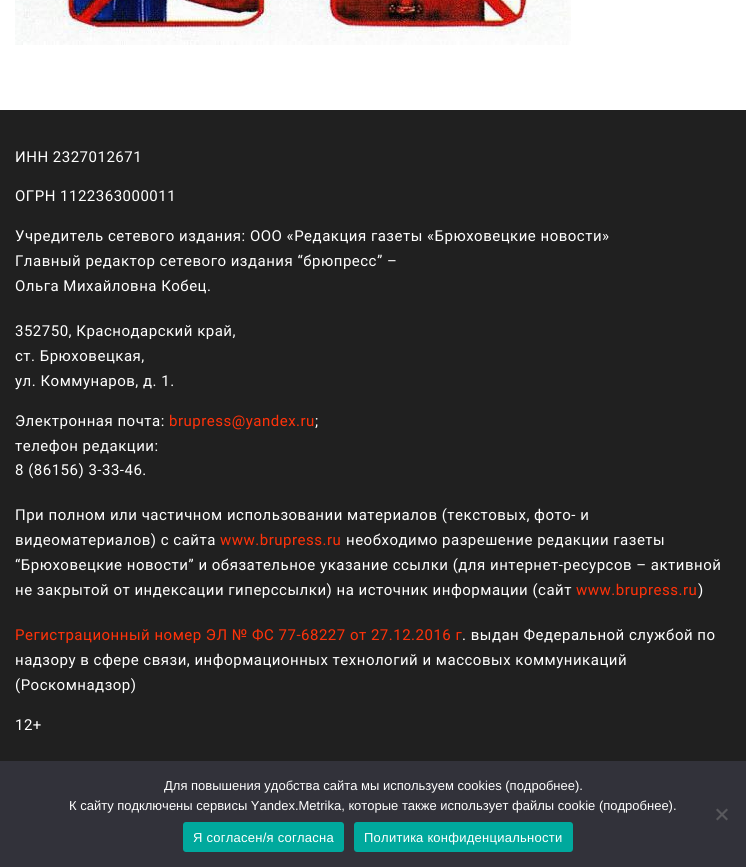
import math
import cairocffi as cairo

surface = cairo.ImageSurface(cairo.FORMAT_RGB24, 746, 867)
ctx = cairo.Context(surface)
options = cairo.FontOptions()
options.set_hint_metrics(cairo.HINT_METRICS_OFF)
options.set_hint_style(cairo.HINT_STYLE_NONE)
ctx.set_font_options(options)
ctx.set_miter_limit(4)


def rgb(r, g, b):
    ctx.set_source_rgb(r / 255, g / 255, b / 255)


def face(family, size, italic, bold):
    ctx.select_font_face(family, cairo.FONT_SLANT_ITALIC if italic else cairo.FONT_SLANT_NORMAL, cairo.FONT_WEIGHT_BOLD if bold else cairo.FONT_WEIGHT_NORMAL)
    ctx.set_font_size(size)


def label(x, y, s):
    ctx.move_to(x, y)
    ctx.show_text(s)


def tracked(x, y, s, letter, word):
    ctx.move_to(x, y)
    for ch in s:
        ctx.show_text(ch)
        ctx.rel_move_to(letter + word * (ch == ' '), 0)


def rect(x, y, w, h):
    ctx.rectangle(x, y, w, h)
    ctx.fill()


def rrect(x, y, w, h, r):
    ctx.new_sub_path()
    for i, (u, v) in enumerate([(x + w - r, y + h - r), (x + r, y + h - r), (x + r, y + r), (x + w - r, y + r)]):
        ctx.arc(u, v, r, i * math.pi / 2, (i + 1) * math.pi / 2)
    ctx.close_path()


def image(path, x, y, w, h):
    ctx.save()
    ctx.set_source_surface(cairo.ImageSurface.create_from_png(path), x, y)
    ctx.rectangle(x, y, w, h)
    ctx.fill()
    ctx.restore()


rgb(255, 255, 255)
ctx.paint()
image('image0.png', 15, 0, 556, 45)
rgb(32, 32, 32)
rect(0, 110, 746, 651)
face('Roboto', 15, 0, 0)
rgb(255, 255, 255)
tracked(15, 162, 'ИНН 2327012671', 0.5, 0)
tracked(15, 201, 'ОГРН 1122363000011', 0.5, 0)
tracked(15, 241, 'Учредитель сетевого издания: ООО «Редакция газеты «Брюховецкие новости»', 0.5, 0)
tracked(15, 266, 'Главный редактор сетевого издания “брюпресс” –', 0.5, 0)
tracked(15, 291, 'Ольга Михайловна Кобец.', 0.5, 0)
tracked(15, 336, '352750, Краснодарский край,', 0.5, 0)
tracked(15, 361, 'ст. Брюховецкая,', 0.5, 0)
tracked(15, 386, 'ул. Коммунаров, д. 1.', 0.5, 0)
tracked(15, 426, 'Электронная почта:', 0.5, 0)
rgb(255, 50, 9)
tracked(169, 426, 'brupress@yandex.ru', 0.5, 0)
rgb(255, 255, 255)
tracked(315, 426, ';', 0.5, 0)
tracked(15, 451, 'телефон редакции:', 0.5, 0)
tracked(15, 475, '8 (86156) 3-33-46.', 0.5, 0)
tracked(15, 520, 'При полном или частичном использовании материалов (текстовых, фото- и', 0.5, 0)
tracked(15, 545, 'видеоматериалов) с сайта', 0.5, 0)
rgb(255, 50, 9)
tracked(220, 545, 'www.brupress.ru', 0.5, 0)
rgb(255, 255, 255)
tracked(346, 545, 'необходимо разрешение редакции газеты', 0.5, 0)
tracked(15, 570, '“Брюховецкие новости” и обязательное указание ссылки (для интернет-ресурсов – активной', 0.5, 0)
tracked(15, 595, 'не закрытой от индексации гиперссылки) на источник информации (сайт', 0.5, 0)
rgb(255, 50, 9)
tracked(576, 595, 'www.brupress.ru', 0.5, 0)
rgb(255, 255, 255)
tracked(698, 595, ')', 0.5, 0)
rgb(255, 50, 9)
tracked(15, 640, 'Регистрационный номер ЭЛ № ФС 77-68227 от 27.12.2016 г', 0.5, 0)
rgb(255, 255, 255)
tracked(462, 640, '. выдан Федеральной службой по', 0.5, 0)
tracked(15, 665, 'надзору в сфере связи, информационных технологий и массовых коммуникаций', 0.5, 0)
tracked(15, 690, '(Роскомнадзор)', 0.5, 0)
tracked(15, 730, '12+', 0.5, 0)
rgb(50, 50, 58)
rect(0, 761, 746, 106)
face('Liberation Sans', 13, 0, 0)
rgb(255, 255, 255)
label(164, 790, 'Для повышения удобства сайта мы используем cookies (подробнее).')
label(69, 810, 'К сайту подключены сервисы Yandex.Metrika, которые также использует файлы cookie (подробнее).')
rgb(89, 89, 93)
ctx.new_path()
ctx.move_to(726.5, 808.5)
ctx.line_to(728, 810)
ctx.line_to(717.5, 820.5)
ctx.line_to(716, 819)
ctx.close_path()
ctx.fill()
ctx.new_path()
ctx.move_to(716, 810)
ctx.line_to(717.5, 808.5)
ctx.line_to(728, 819)
ctx.line_to(726.5, 820.5)
ctx.close_path()
ctx.fill()
rgb(0, 169, 157)
rrect(183, 822, 161, 30, 3)
ctx.fill()
rgb(255, 255, 255)
tracked(193, 842, 'Я согласен/я согласна', 0.25, 0)
rgb(0, 169, 157)
rrect(354, 822, 219, 30, 3)
ctx.fill()
rgb(255, 255, 255)
tracked(364, 842, 'Политика конфиденциальности', 0.25, 0)
surface.write_to_png('render.png')
